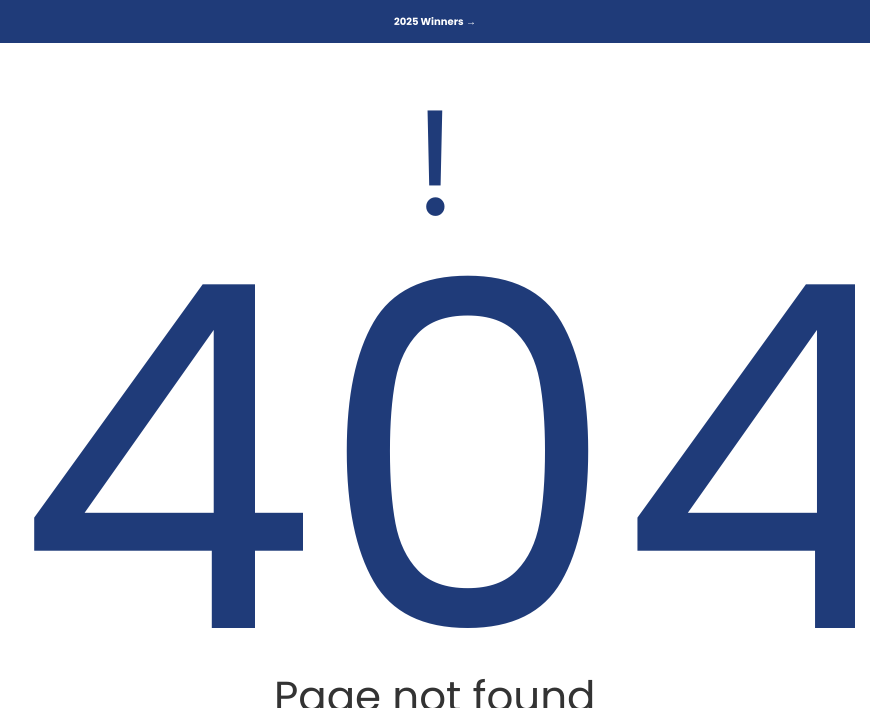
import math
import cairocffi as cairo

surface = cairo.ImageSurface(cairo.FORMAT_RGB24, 870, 708)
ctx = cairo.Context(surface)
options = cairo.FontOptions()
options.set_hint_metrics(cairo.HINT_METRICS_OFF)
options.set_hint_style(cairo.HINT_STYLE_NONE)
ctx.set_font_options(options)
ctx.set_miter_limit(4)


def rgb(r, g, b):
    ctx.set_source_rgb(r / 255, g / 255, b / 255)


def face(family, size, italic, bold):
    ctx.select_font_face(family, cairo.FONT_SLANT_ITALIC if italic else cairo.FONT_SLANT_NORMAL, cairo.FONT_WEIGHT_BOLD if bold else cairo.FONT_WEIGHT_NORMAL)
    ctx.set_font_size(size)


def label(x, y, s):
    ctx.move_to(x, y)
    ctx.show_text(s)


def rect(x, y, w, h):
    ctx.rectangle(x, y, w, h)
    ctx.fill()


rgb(255, 255, 255)
ctx.paint()
rgb(31, 59, 121)
rect(0, 0, 870, 43)
face('Poppins', 10, 0, 1)
rgb(255, 255, 255)
label(394, 25, '2025 Winners')
face('Liberation Sans', 10, 0, 1)
label(466, 25, '→')
face('Poppins', 150, 0, 0)
rgb(31, 59, 121)
label(413, 215, '!')
ctx.save()
ctx.rectangle(15, 268, 840, 384)
ctx.clip()
face('Poppins', 480, 0, 0)
label(15, 628, '404')
ctx.restore()
face('Poppins', 42, 0, 0)
rgb(51, 51, 51)
label(274, 711, 'Page not found')
surface.write_to_png('render.png')
